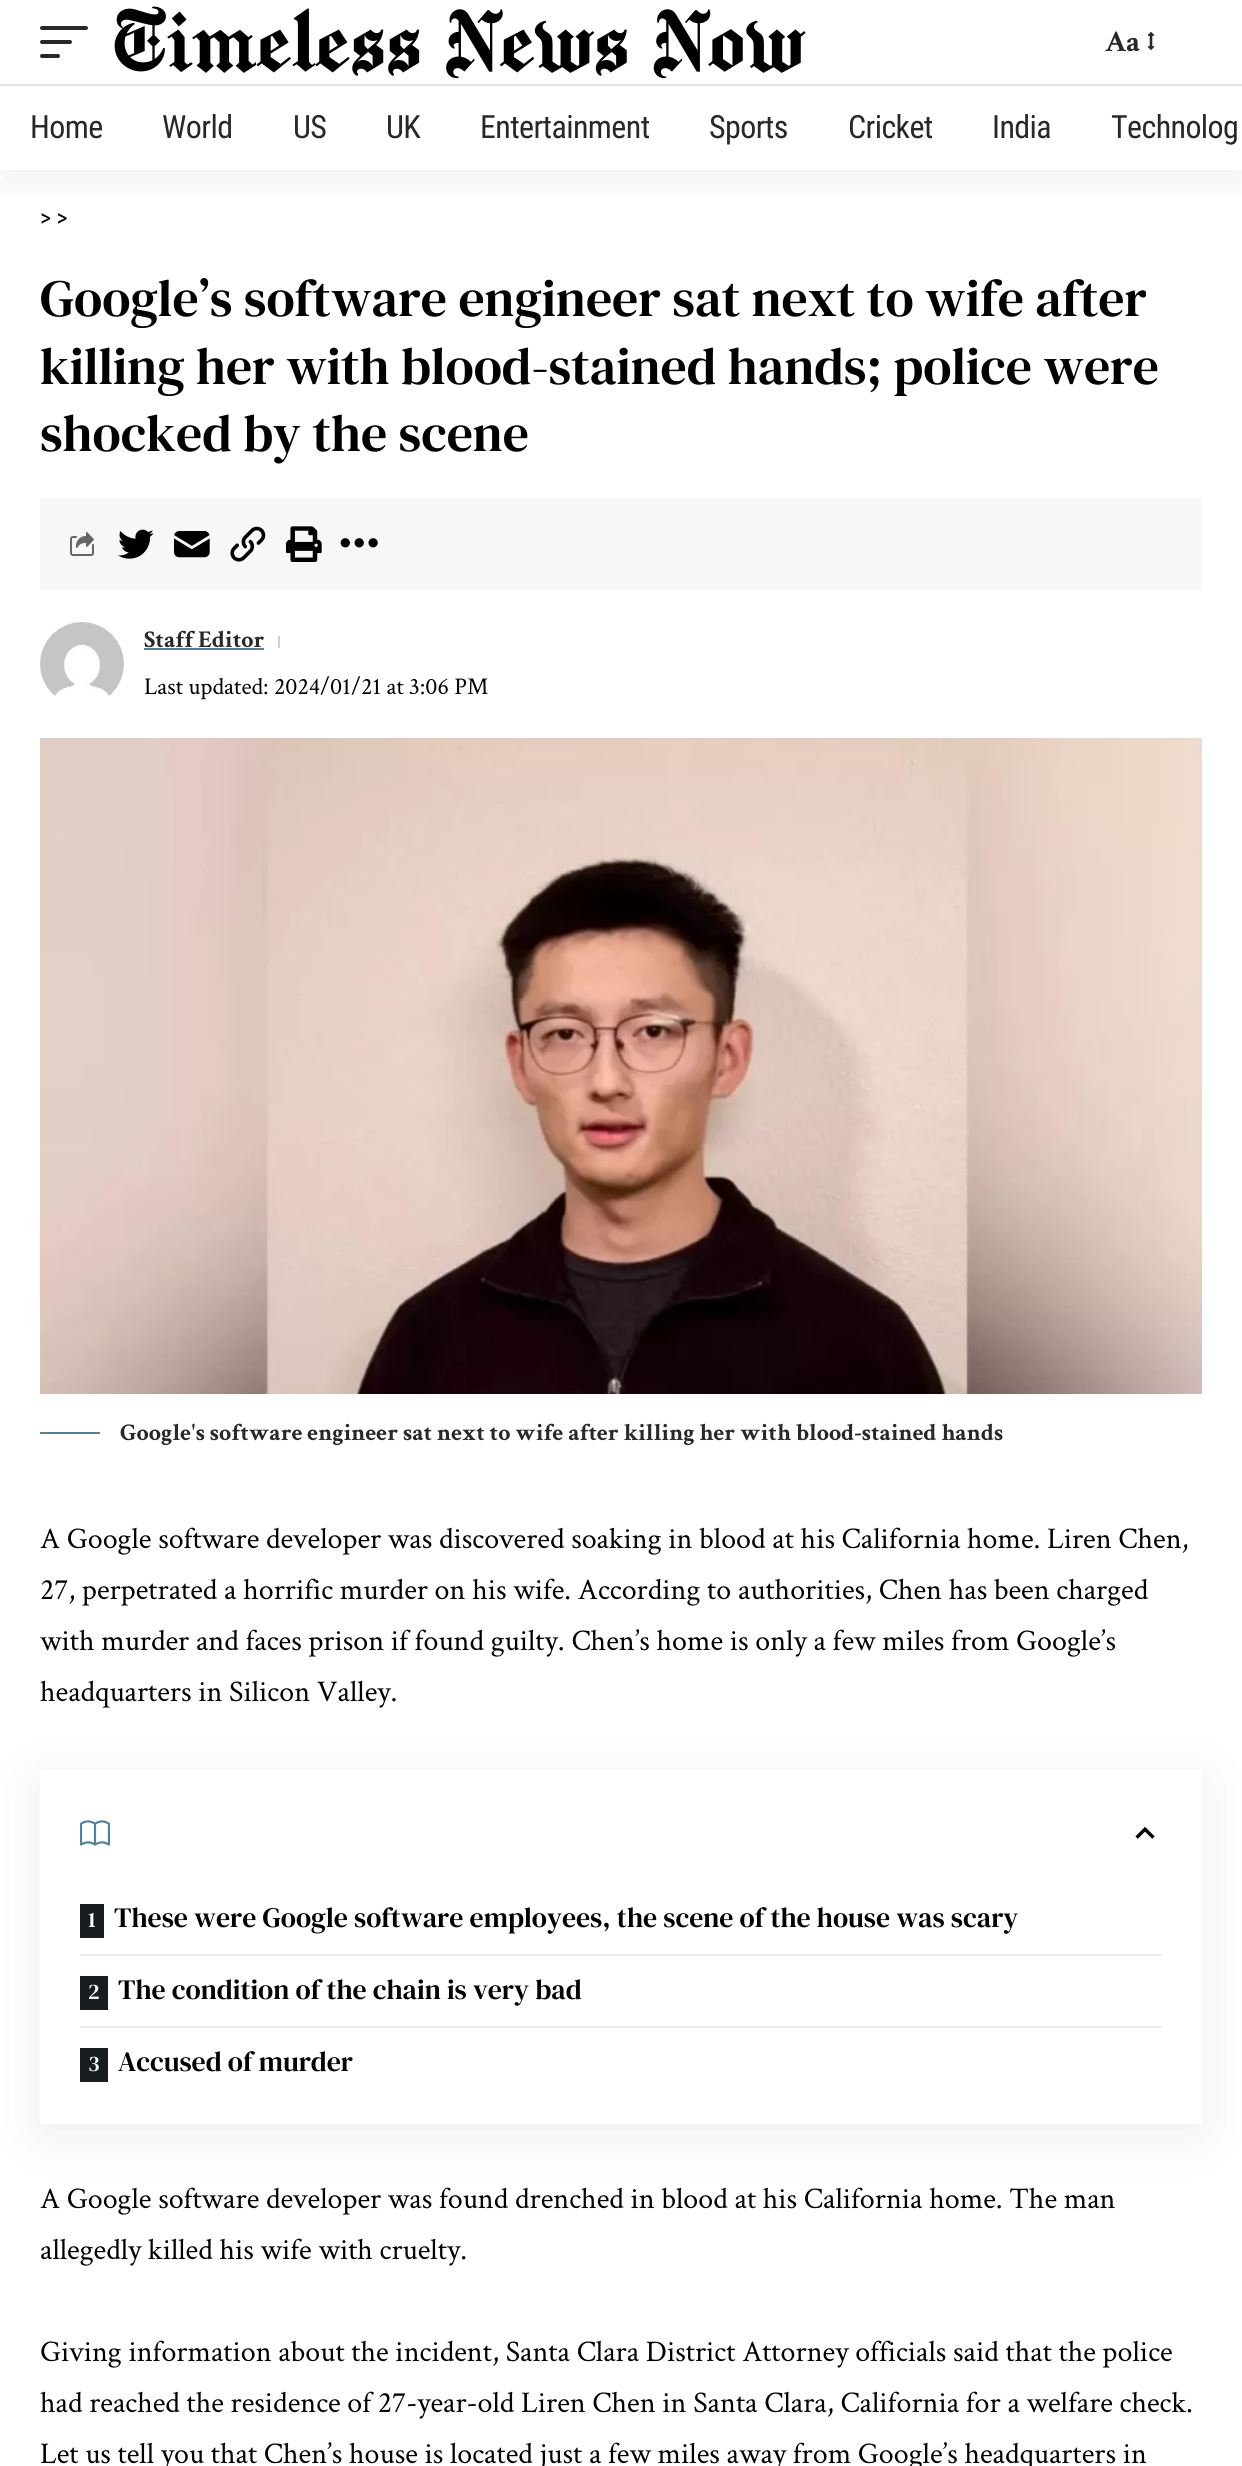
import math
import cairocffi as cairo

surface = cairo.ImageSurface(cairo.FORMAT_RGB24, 1242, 2466)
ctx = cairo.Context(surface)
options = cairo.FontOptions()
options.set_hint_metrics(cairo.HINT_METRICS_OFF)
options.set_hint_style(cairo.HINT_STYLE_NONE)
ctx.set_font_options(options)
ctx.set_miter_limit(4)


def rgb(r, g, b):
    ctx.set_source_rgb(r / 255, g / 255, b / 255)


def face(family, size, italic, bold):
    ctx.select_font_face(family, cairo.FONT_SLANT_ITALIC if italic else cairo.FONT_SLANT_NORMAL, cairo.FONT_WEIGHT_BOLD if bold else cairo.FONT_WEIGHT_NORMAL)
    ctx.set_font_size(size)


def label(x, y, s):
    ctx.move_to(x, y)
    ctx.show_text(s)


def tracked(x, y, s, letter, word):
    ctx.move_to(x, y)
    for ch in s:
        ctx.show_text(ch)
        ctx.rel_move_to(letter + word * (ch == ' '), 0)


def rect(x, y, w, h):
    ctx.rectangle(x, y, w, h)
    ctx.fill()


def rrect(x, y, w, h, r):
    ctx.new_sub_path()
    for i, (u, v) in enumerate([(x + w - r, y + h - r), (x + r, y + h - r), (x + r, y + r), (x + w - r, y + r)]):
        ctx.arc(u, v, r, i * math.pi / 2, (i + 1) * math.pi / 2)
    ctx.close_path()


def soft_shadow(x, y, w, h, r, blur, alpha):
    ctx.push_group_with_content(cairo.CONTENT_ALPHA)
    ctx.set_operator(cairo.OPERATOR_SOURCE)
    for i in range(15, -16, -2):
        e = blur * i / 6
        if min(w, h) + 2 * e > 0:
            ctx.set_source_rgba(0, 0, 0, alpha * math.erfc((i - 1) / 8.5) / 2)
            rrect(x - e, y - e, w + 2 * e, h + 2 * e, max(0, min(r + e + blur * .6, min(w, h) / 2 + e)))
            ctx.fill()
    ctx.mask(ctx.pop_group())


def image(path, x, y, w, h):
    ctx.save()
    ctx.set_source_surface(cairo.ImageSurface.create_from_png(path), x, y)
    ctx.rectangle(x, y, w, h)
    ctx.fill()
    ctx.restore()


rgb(255, 255, 255)
ctx.paint()
ctx.save()
ctx.rectangle(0, 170, 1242, 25)
ctx.clip()
rgb(0, 0, 0)
soft_shadow(0, 8, 1242, 170, 0, 30, 0.07)
ctx.restore()
rgb(40, 40, 40)
rrect(40, 26, 48, 4, 2)
ctx.fill()
rrect(40, 40, 32, 4, 2)
ctx.fill()
rrect(40, 54, 20, 4, 2)
ctx.fill()
image('image0.png', 114, 6, 692, 73)
face('Crimson Text', 30, 0, 1)
label(1105, 51, 'Aa')
image('image1.png', 1147, 32, 8, 18)
rgb(228, 228, 228)
rect(0, 84, 1242, 2)
face('Roboto Condensed', 32, 0, 0)
rgb(40, 40, 40)
tracked(30, 138, 'Home', -0.6, 0)
tracked(162, 138, 'World', -0.6, 0)
tracked(293, 138, 'US', -0.6, 0)
tracked(386, 138, 'UK', -0.6, 0)
tracked(480, 138, 'Entertainment', -0.6, 0)
tracked(709, 138, 'Sports', -0.6, 0)
tracked(848, 138, 'Cricket', -0.6, 0)
tracked(992, 138, 'India', -0.6, 0)
tracked(1111, 138, 'Technolog', -0.6, 0)
face('Roboto Condensed', 24, 0, 0)
rgb(0, 0, 0)
label(40, 226, '> >')
face('DM Serif Text', 52, 0, 0)
label(40, 316, 'Google’s software engineer sat next to wife after')
label(40, 384, 'killing her with blood-stained hands; police were')
label(40, 451, 'shocked by the scene')
rgb(247, 247, 247)
rect(40, 498, 1162, 92)
image('image2.png', 70, 532, 24, 24)
image('image3.png', 118, 529, 36, 30)
image('image4.png', 174, 531, 36, 27)
image('image5.png', 230, 526, 36, 36)
image('image6.png', 286, 526, 36, 36)
image('image7.png', 340, 538, 38, 10)
image('image8.png', 40, 622, 84, 74)
face('Crimson Text', 24, 0, 1)
rgb(40, 40, 40)
label(144, 647, 'Staff Editor')
rgb(82, 128, 160)
rect(144, 648, 120, 2)
rgb(209, 209, 209)
rect(278, 636, 2, 12)
face('Crimson Text', 24, 0, 0)
rgb(0, 0, 0)
label(144, 694, 'Last updated: 2024/01/21 at 3:06 PM')
image('image9.png', 40, 738, 1162, 656)
rgb(82, 128, 160)
rect(40, 1432, 60, 2)
face('Crimson Text', 24, 0, 1)
rgb(40, 40, 40)
label(120, 1440, 'Google\'s software engineer sat next to wife after killing her with blood-stained hands')
face('Crimson Text', 30, 0, 0)
rgb(0, 0, 0)
label(40, 1548, 'A Google software developer was discovered soaking in blood at his California home. Liren Chen,')
label(40, 1599, '27, perpetrated a horrific murder on his wife. According to authorities, Chen has been charged')
label(40, 1650, 'with murder and faces prison if found guilty. Chen’s home is only a few miles from Google’s')
label(40, 1701, 'headquarters in Silicon Valley.')
ctx.save()
ctx.set_fill_rule(cairo.FILL_RULE_EVEN_ODD)
ctx.new_path()
ctx.move_to(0, 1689)
ctx.line_to(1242, 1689)
ctx.line_to(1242, 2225)
ctx.line_to(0, 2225)
ctx.close_path()
ctx.move_to(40, 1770)
ctx.line_to(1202, 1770)
ctx.line_to(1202, 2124)
ctx.line_to(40, 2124)
ctx.close_path()
ctx.clip()
rgb(0, 0, 0)
soft_shadow(40, 1780, 1162, 354, 0, 30, 0.07)
ctx.restore()
image('image10.png', 80, 1820, 30, 26)
image('image11.png', 1135, 1826, 20, 13)
rgb(25, 28, 32)
rect(80, 1904, 24, 34)
face('DM Serif Text', 22, 0, 0)
rgb(255, 255, 255)
label(88, 1927, '1')
face('DM Serif Text', 28, 0, 0)
rgb(0, 0, 0)
label(114, 1927, 'These were Google software employees, the scene of the house was scary')
rgb(237, 237, 237)
rect(80, 1954, 1082, 2)
rgb(25, 28, 32)
rect(80, 1976, 28, 34)
face('DM Serif Text', 22, 0, 0)
rgb(255, 255, 255)
label(88, 1999, '2')
face('DM Serif Text', 28, 0, 0)
rgb(0, 0, 0)
label(118, 1999, 'The condition of the chain is very bad')
rgb(237, 237, 237)
rect(80, 2026, 1082, 2)
rgb(25, 28, 32)
rect(80, 2048, 28, 34)
face('DM Serif Text', 22, 0, 0)
rgb(255, 255, 255)
label(88, 2071, '3')
face('DM Serif Text', 28, 0, 0)
rgb(0, 0, 0)
label(118, 2071, 'Accused of murder')
face('Crimson Text', 30, 0, 0)
label(40, 2208, 'A Google software developer was found drenched in blood at his California home. The man')
label(40, 2259, 'allegedly killed his wife with cruelty.')
label(40, 2361, 'Giving information about the incident, Santa Clara District Attorney officials said that the police')
label(40, 2412, 'had reached the residence of 27-year-old Liren Chen in Santa Clara, California for a welfare check.')
label(40, 2463, 'Let us tell you that Chen’s house is located just a few miles away from Google’s headquarters in')
surface.write_to_png('render.png')
